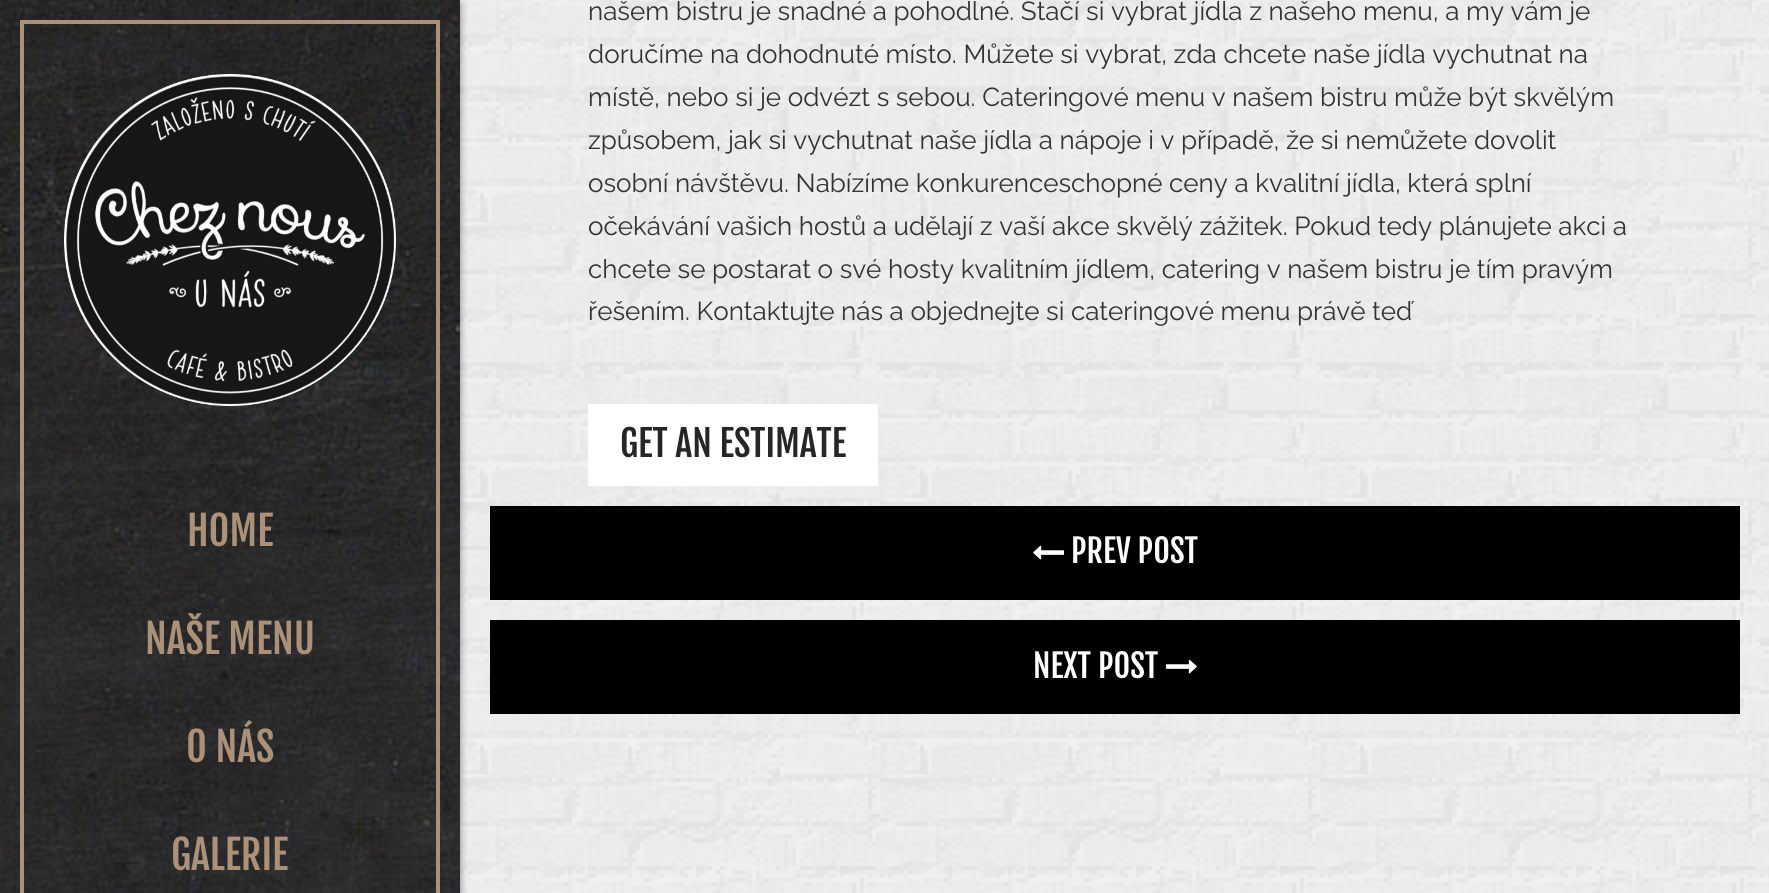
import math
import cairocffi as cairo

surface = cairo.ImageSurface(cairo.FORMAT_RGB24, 1769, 893)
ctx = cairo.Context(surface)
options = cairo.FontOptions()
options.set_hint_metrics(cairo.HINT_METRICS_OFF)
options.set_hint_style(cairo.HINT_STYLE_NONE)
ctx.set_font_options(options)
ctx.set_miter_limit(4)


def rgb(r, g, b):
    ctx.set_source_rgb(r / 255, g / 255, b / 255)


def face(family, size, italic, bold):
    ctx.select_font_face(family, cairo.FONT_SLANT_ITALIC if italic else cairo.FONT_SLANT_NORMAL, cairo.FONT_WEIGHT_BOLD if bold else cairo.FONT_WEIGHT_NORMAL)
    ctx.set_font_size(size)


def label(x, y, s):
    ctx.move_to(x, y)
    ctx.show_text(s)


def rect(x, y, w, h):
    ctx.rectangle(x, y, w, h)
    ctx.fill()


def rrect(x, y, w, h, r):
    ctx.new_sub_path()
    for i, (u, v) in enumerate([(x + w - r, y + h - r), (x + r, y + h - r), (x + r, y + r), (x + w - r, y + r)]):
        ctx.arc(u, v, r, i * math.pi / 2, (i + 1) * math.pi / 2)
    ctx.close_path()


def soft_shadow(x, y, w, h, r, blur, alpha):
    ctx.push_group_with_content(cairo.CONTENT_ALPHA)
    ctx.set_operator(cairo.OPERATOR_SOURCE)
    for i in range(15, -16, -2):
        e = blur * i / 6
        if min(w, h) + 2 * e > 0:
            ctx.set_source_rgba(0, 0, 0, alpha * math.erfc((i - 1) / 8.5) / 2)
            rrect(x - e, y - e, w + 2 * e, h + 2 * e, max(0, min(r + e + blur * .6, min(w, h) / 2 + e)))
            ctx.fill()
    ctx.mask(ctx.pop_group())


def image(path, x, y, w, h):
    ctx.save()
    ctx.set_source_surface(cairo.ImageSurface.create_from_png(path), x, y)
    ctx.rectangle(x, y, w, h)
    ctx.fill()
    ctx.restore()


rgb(255, 255, 255)
ctx.paint()
image('image0.png', 460, 0, 1309, 893)
rgb(0, 0, 0)
soft_shadow(0, 4, 460, 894, 0, 4, 0.45)
image('image1.png', 0, 0, 460, 893)
ctx.rectangle(22, 22, 416, 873)
rgb(171, 145, 120)
ctx.set_line_width(4)
ctx.stroke()
image('image2.png', 64, 74, 332, 332)
face('Fjalla One', 40, 0, 0)
label(187, 546, 'HOME')
label(145, 654, 'NAŠE MENU')
label(186, 762, 'O NÁS')
label(171, 870, 'GALERIE')
face('Raleway', 26, 0, 0)
rgb(51, 51, 51)
label(588, 20, 'našem bistru je snadné a pohodlné. Stačí si vybrat jídla z našeho menu, a my vám je')
label(588, 63, 'doručíme na dohodnuté místo. Můžete si vybrat, zda chcete naše jídla vychutnat na')
label(588, 106, 'místě, nebo si je odvézt s sebou. Cateringové menu v našem bistru může být skvělým')
label(588, 149, 'způsobem, jak si vychutnat naše jídla a nápoje i v případě, že si nemůžete dovolit')
label(588, 192, 'osobní návštěvu. Nabízíme konkurenceschopné ceny a kvalitní jídla, která splní')
label(588, 235, 'očekávání vašich hostů a udělají z vaší akce skvělý zážitek. Pokud tedy plánujete akci a')
label(588, 278, 'chcete se postarat o své hosty kvalitním jídlem, catering v našem bistru je tím pravým')
label(588, 320, 'řešením. Kontaktujte nás a objednejte si cateringové menu právě teď')
rgb(255, 255, 255)
rect(588, 404, 290, 82)
face('Fjalla One', 36, 0, 0)
rgb(38, 38, 38)
label(620, 457, 'GET AN ESTIMATE')
rgb(0, 0, 0)
rect(490, 506, 1250, 94)
image('image3.png', 1033, 545, 31, 15)
face('Fjalla One', 32, 0, 0)
rgb(255, 255, 255)
label(1071, 563, 'PREV POST')
rgb(0, 0, 0)
rect(490, 620, 1250, 94)
rgb(255, 255, 255)
label(1033, 678, 'NEXT POST')
image('image4.png', 1166, 659, 31, 15)
surface.write_to_png('render.png')
